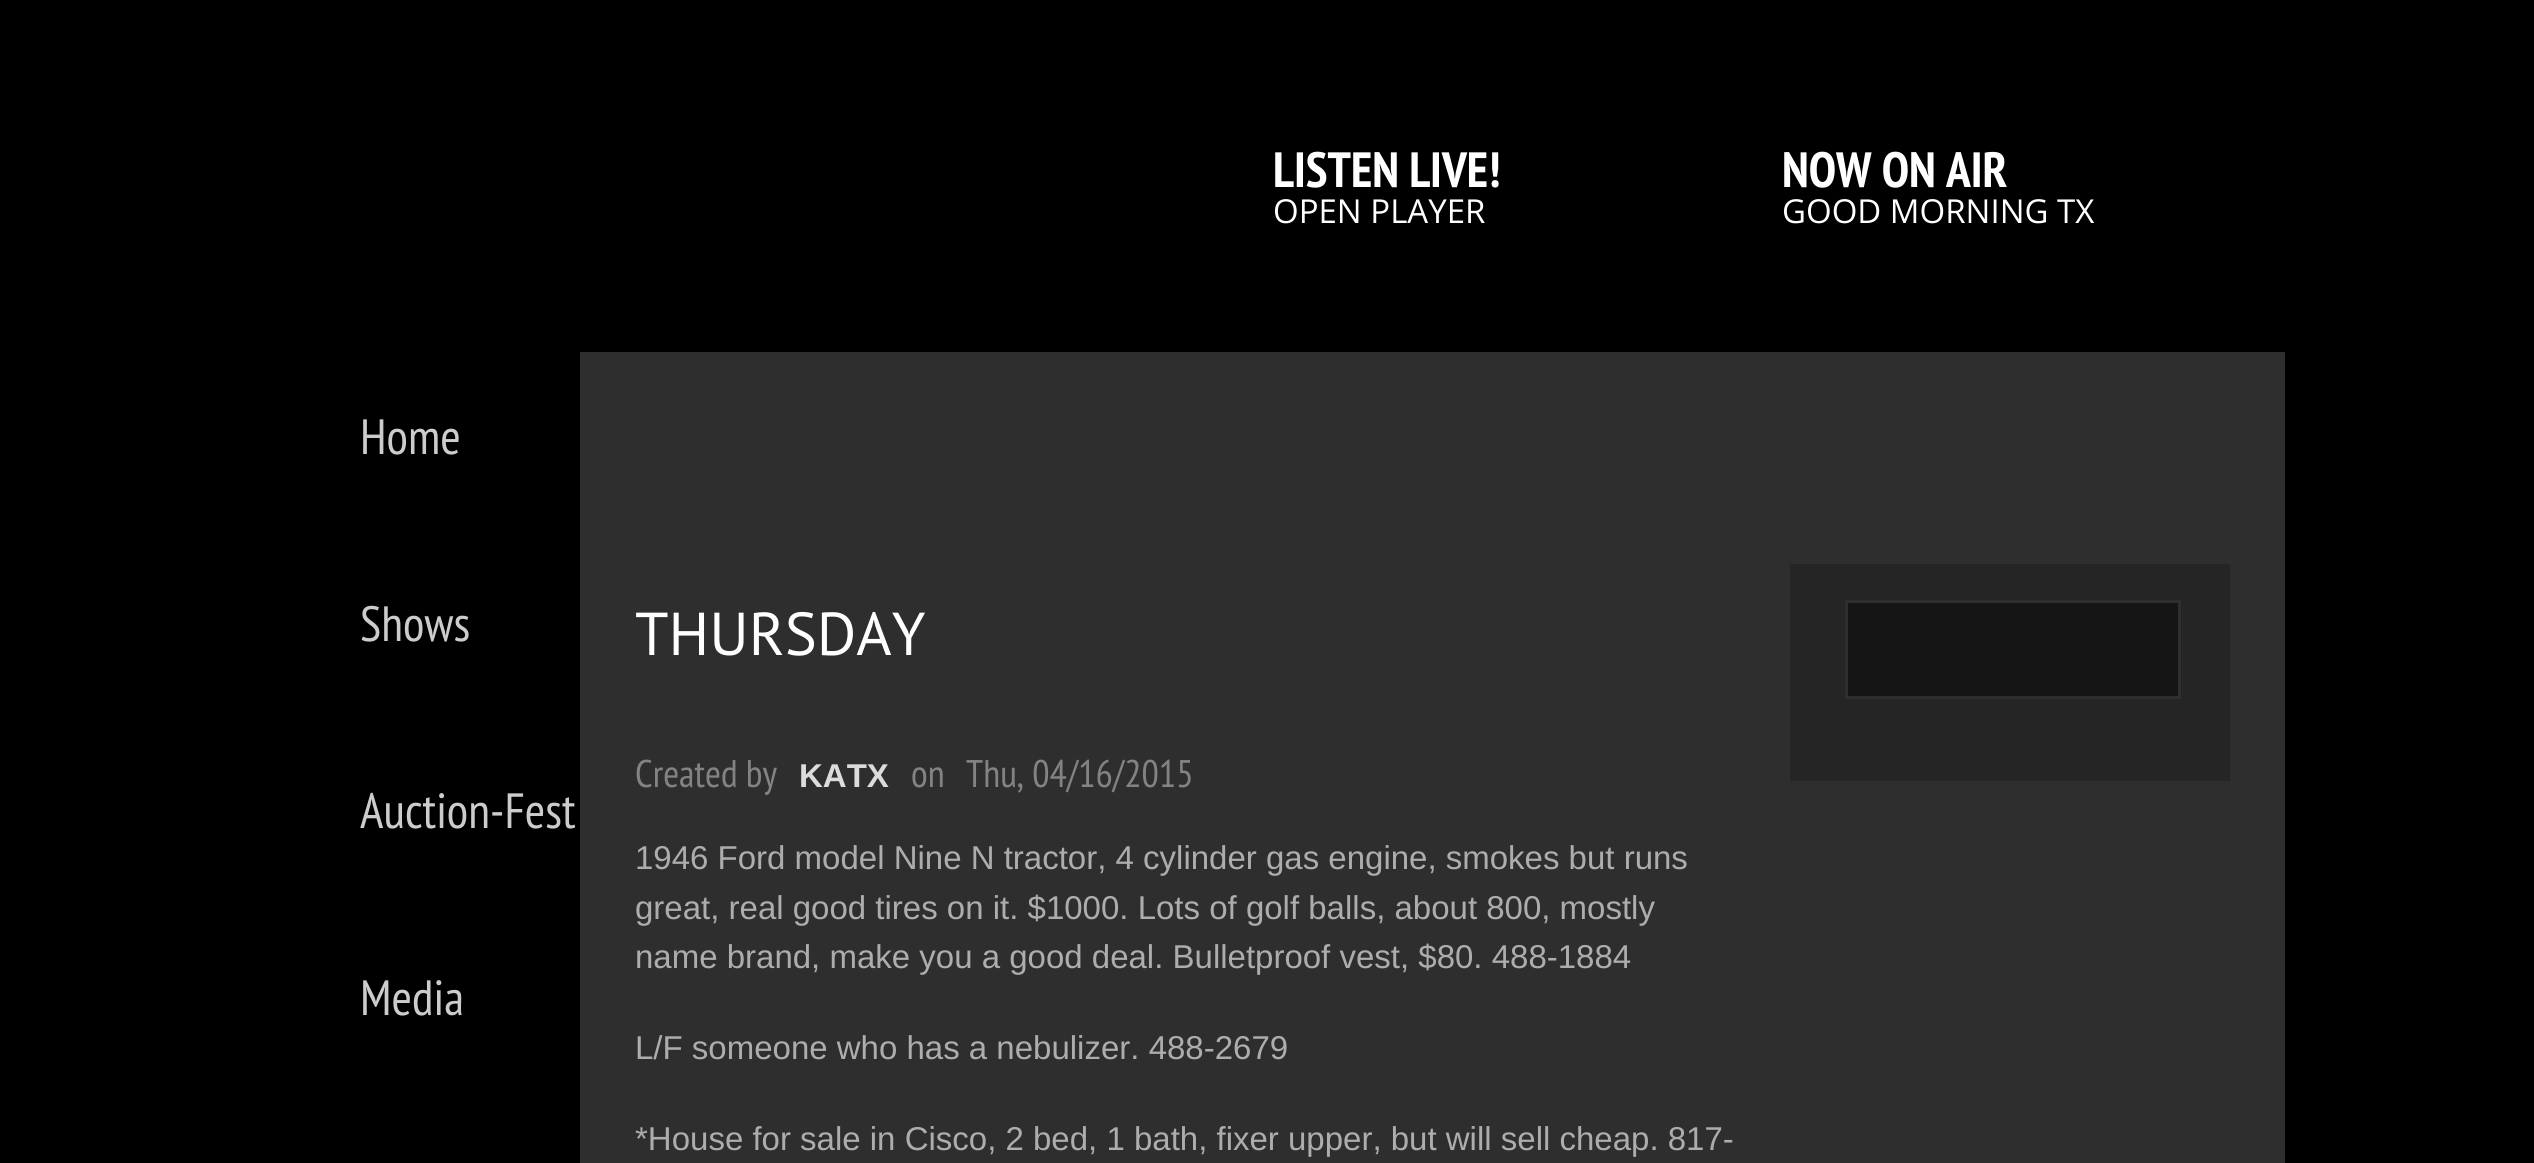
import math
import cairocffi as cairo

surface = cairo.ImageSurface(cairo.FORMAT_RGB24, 2534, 1163)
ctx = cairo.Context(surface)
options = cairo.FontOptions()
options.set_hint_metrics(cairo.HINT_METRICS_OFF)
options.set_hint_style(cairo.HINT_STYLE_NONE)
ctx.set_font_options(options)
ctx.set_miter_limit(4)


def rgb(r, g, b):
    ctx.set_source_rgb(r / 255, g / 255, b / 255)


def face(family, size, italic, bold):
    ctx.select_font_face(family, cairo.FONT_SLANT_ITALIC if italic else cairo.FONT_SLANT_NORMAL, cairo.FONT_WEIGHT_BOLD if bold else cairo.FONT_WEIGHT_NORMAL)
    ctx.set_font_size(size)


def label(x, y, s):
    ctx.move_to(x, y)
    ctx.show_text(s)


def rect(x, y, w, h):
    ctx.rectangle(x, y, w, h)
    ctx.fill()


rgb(0, 0, 0)
ctx.paint()
face('PT Sans Narrow', 49.5, 0, 1)
rgb(255, 255, 255)
label(1273, 187, 'LISTEN LIVE!')
face('Open Sans', 33, 0, 0)
label(1273, 223, 'OPEN PLAYER')
face('PT Sans Narrow', 49.5, 0, 1)
label(1782, 187, 'NOW ON AIR')
face('Open Sans', 33, 0, 0)
label(1782, 223, 'GOOD MORNING TX')
face('PT Sans Narrow', 49.5, 0, 0)
rgb(204, 204, 204)
label(360, 454, 'Home')
label(360, 641, 'Shows')
label(360, 828, 'Auction-Fest')
label(360, 1015, 'Media')
rgb(46, 46, 46)
rect(580, 352, 1705, 811)
face('PT Sans', 60.5, 0, 0)
rgb(255, 255, 255)
label(635, 655, 'THURSDAY')
face('PT Sans Narrow', 38.5, 0, 0)
rgb(131, 131, 131)
label(635, 787, 'Created by')
face('Liberation Sans', 33, 0, 1)
rgb(220, 220, 220)
label(799, 787, 'KATX')
face('PT Sans Narrow', 38.5, 0, 0)
rgb(131, 131, 131)
label(911, 787, 'on')
label(966, 787, 'Thu, 04/16/2015')
face('Liberation Sans', 33, 0, 0)
rgb(173, 173, 173)
label(635, 869, '1946 Ford model Nine N tractor, 4 cylinder gas engine, smokes but runs')
label(635, 919, 'great, real good tires on it. $1000. Lots of golf balls, about 800, mostly')
label(635, 968, 'name brand, make you a good deal. Bulletproof vest, $80. 488-1884')
label(635, 1059, 'L/F someone who has a nebulizer. 488-2679')
label(635, 1150, '*House for sale in Cisco, 2 bed, 1 bath, fixer upper, but will sell cheap. 817-')
rgb(37, 37, 37)
rect(1790, 564, 440, 217)
rgb(21, 21, 21)
ctx.rectangle(1846.5, 601.5, 333, 96)
ctx.fill_preserve()
rgb(46, 46, 46)
ctx.set_line_width(3)
ctx.stroke()
surface.write_to_png('render.png')
